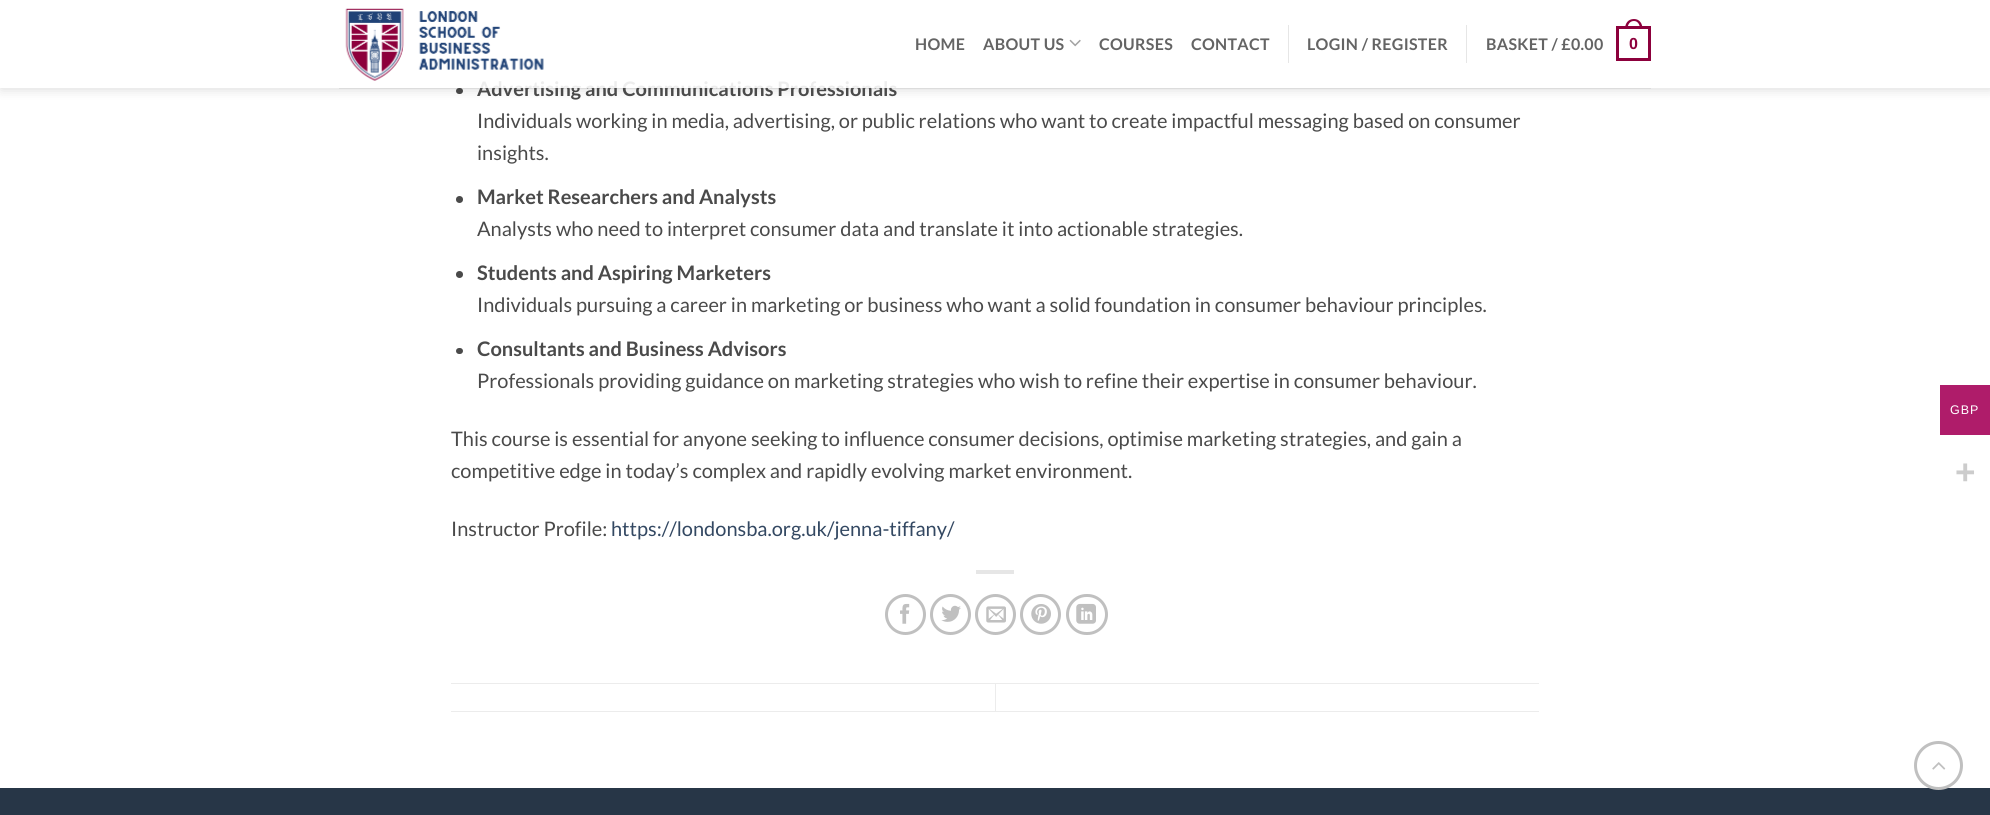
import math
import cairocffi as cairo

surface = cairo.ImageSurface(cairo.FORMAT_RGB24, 1990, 815)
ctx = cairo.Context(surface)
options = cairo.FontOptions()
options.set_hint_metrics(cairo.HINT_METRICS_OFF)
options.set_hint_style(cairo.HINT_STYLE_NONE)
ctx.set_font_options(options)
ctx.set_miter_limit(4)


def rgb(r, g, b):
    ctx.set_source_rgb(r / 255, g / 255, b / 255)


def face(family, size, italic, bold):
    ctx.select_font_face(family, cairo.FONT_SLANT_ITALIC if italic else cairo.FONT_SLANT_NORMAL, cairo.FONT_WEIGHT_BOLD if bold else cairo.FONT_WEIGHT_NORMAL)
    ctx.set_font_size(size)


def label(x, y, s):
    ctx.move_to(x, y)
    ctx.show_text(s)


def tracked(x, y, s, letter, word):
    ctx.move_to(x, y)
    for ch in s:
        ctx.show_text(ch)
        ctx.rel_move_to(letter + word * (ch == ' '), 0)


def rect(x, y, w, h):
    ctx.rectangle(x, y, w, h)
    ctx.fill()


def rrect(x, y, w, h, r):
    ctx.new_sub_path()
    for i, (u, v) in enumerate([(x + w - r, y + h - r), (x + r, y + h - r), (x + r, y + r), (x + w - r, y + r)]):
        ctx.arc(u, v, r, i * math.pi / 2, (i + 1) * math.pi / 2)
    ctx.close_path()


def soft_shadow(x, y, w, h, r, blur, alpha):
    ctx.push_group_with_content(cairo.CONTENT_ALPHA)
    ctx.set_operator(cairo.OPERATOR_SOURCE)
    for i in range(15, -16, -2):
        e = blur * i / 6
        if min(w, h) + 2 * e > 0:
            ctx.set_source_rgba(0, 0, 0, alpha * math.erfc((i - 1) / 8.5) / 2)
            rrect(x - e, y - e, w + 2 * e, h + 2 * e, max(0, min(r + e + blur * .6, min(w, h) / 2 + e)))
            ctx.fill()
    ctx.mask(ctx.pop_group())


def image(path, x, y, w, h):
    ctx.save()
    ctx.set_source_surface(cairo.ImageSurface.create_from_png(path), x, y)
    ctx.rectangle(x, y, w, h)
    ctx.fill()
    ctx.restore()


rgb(255, 255, 255)
ctx.paint()
rgb(74, 74, 74)
ctx.arc(459.5, 14.5, 3.5, 0, 2 * math.pi)
ctx.fill()
rrect(456, 88, 7, 6, 3)
ctx.fill()
ctx.save()
ctx.set_fill_rule(cairo.FILL_RULE_EVEN_ODD)
ctx.new_path()
ctx.move_to(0, 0)
ctx.line_to(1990, 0)
ctx.line_to(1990, 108)
ctx.line_to(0, 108)
ctx.close_path()
ctx.move_to(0, 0)
ctx.line_to(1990, 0)
ctx.line_to(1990, 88)
ctx.line_to(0, 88)
ctx.close_path()
ctx.clip()
rgb(0, 0, 0)
soft_shadow(1, 1, 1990, 88, 0, 6, 0.15)
ctx.restore()
face('Lato', 20, 0, 1)
label(477, 96, 'Advertising and Communications Professionals')
ctx.set_source_rgba(1, 1, 1, 0.9)
rect(0, 11, 1990, 77)
image('image0.png', 345, 8, 199, 73)
face('Lato', 16, 0, 1)
rgb(100, 100, 100)
tracked(915, 50, 'HOME', 0.3, 0)
tracked(983, 50, 'ABOUT US', 0.3, 0)
image('image1.png', 1069, 39, 12, 8)
tracked(1099, 50, 'COURSES', 0.3, 0)
tracked(1191, 50, 'CONTACT', 0.3, 0)
ctx.set_source_rgba(0, 0, 0, 0.1)
rect(1288, 25, 1, 38)
rgb(100, 100, 100)
tracked(1307, 50, 'LOGIN / REGISTER', 0.3, 0)
rgb(230, 230, 230)
rect(1466, 25, 1, 38)
rgb(100, 100, 100)
tracked(1486, 50, 'BASKET / £0.00', 0.3, 0)
ctx.rectangle(1617.5, 27.5, 32, 32)
rgb(140, 0, 60)
ctx.set_line_width(3)
ctx.stroke()
ctx.set_fill_rule(cairo.FILL_RULE_EVEN_ODD)
ctx.new_path()
ctx.move_to(1634, 19)
ctx.curve_to(1639.5, 19, 1642.5, 23.5, 1642.5, 29)
ctx.line_to(1625, 29)
ctx.curve_to(1625, 23.5, 1628, 19, 1634, 19)
ctx.close_path()
ctx.move_to(1634, 21)
ctx.curve_to(1638, 21, 1640, 25, 1640, 29)
ctx.line_to(1627.5, 29)
ctx.curve_to(1627.5, 25, 1629.5, 21, 1634, 21)
ctx.close_path()
ctx.fill()
face('Liberation Sans', 16, 0, 1)
tracked(1629, 49, '0', 0.3, 0)
ctx.set_source_rgba(0.29, 0.29, 0.29, 0.1)
rect(339, 88, 1312, 1)
face('Lato', 20, 0, 0)
rgb(74, 74, 74)
label(477, 128, 'Individuals working in media, advertising, or public relations who want to create impactful messaging based on consumer')
label(477, 160, 'insights.')
ctx.new_path()
ctx.arc(459.5, 199.5, 3.5, 0, 2 * math.pi)
ctx.fill()
face('Lato', 20, 0, 1)
label(477, 204, 'Market Researchers and Analysts')
face('Lato', 20, 0, 0)
label(477, 236, 'Analysts who need to interpret consumer data and translate it into actionable strategies.')
ctx.new_path()
ctx.arc(459.5, 274.5, 3.5, 0, 2 * math.pi)
ctx.fill()
face('Lato', 20, 0, 1)
label(477, 280, 'Students and Aspiring Marketers')
face('Lato', 20, 0, 0)
label(477, 312, 'Individuals pursuing a career in marketing or business who want a solid foundation in consumer behaviour principles.')
rrect(456, 348, 7, 6, 3)
ctx.fill()
face('Lato', 20, 0, 1)
label(477, 356, 'Consultants and Business Advisors')
face('Lato', 20, 0, 0)
label(477, 388, 'Professionals providing guidance on marketing strategies who wish to refine their expertise in consumer behaviour.')
label(451, 446, 'This course is essential for anyone seeking to influence consumer decisions, optimise marketing strategies, and gain a')
label(451, 478, 'competitive edge in today’s complex and rapidly evolving market environment.')
label(451, 536, 'Instructor Profile:')
rgb(51, 72, 98)
label(611, 536, 'https://londonsba.org.uk/jenna-tiffany/')
rgb(230, 230, 230)
rect(976, 570, 38, 4)
ctx.new_path()
ctx.arc(905.5, 614.5, 19, 0, 2 * math.pi)
rgb(192, 192, 192)
ctx.stroke()
image('image2.png', 900, 603, 10, 21)
ctx.arc(950.5, 614.5, 19, 0, 2 * math.pi)
ctx.stroke()
image('image3.png', 941, 605, 20, 17)
ctx.arc(995.5, 614.5, 19, 0, 2 * math.pi)
ctx.stroke()
image('image4.png', 986, 606, 20, 17)
ctx.arc(1040.5, 614.5, 19, 0, 2 * math.pi)
ctx.stroke()
image('image5.png', 1031, 604, 20, 20)
rrect(1067.5, 595.5, 39, 38, 19)
ctx.stroke()
image('image6.png', 1076, 603, 20, 21)
rgb(236, 236, 236)
rect(451, 683, 1088, 1)
rect(451, 711, 1088, 1)
rect(995, 684, 1, 27)
rgb(39, 54, 71)
rect(0, 788, 1990, 27)
ctx.arc(1938.5, 765.5, 23, 0, 2 * math.pi)
rgb(192, 192, 192)
ctx.stroke()
image('image7.png', 1932, 762, 14, 8)
rgb(175, 28, 106)
rect(1940, 385, 50, 50)
face('Liberation Sans', 12.5, 0, 0)
rgb(255, 255, 255)
tracked(1950, 414, 'GBP', 1, 0)
face('Liberation Sans', 35, 0, 1)
rgb(204, 204, 204)
label(1955, 484, '+')
surface.write_to_png('render.png')
